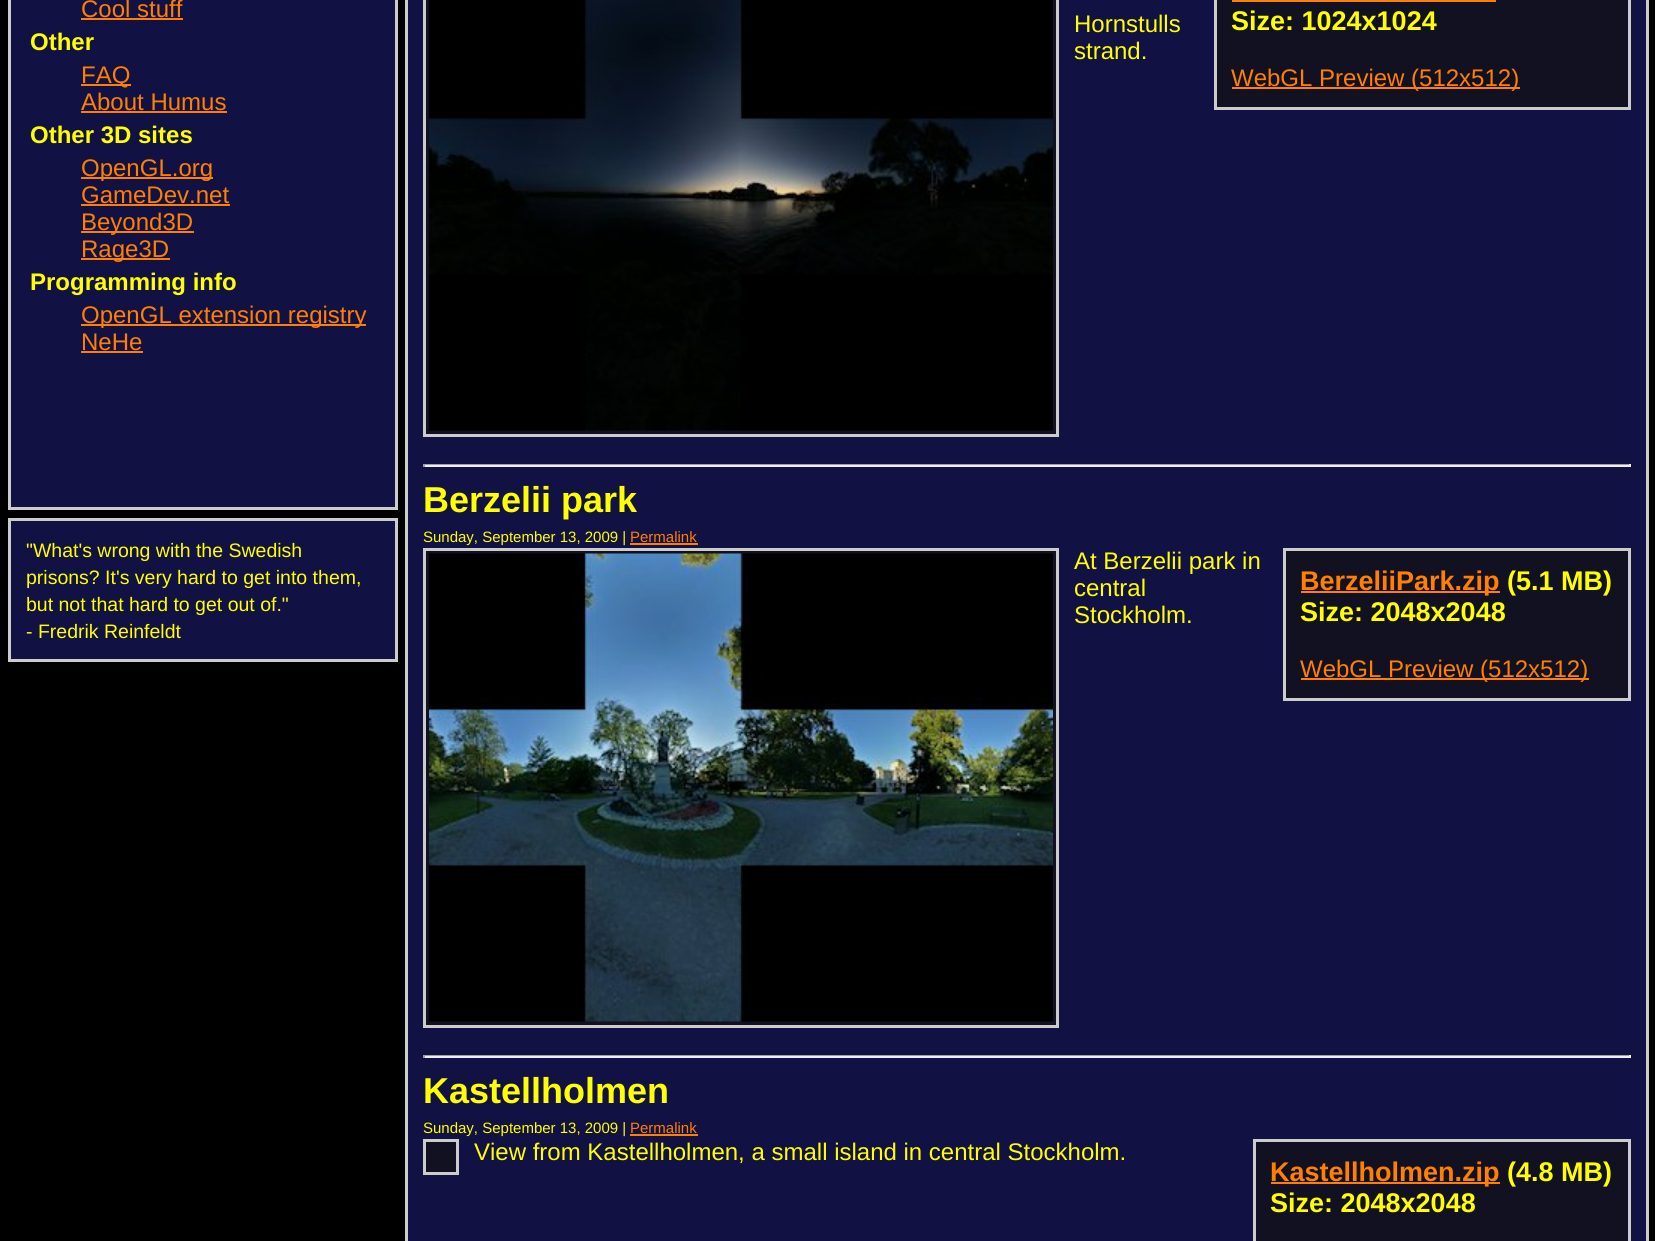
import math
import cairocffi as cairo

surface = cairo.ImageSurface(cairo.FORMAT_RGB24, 1655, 1241)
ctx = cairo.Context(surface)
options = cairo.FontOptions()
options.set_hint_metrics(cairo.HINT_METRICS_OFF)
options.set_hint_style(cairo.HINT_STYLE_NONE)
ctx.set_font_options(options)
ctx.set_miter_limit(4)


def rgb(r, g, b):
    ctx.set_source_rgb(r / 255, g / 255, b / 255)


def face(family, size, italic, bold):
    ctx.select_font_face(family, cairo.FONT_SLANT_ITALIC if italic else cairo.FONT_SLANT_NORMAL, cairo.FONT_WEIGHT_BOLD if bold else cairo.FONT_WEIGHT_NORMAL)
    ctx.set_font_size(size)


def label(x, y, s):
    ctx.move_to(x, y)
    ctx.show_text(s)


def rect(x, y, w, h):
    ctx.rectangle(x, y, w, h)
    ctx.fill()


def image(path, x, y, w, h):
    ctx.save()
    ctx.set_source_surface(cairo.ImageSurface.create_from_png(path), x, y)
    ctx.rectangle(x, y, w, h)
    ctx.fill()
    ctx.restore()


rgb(0, 0, 0)
ctx.paint()
rgb(17, 17, 68)
ctx.rectangle(9.5, -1.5, 387, 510)
ctx.fill_preserve()
rgb(204, 204, 204)
ctx.set_line_width(3)
ctx.stroke()
face('Liberation Sans', 24, 0, 0)
rgb(255, 128, 0)
label(81, 17, 'Cool stuff')
rect(81, 18, 102, 2)
face('Liberation Sans', 24, 0, 1)
rgb(255, 255, 0)
label(30, 50, 'Other')
rgb(255, 128, 0)
rect(81, 84, 50, 2)
face('Liberation Sans', 24, 0, 0)
label(81, 83, 'FAQ')
label(81, 110, 'About Humus')
rect(81, 111, 146, 2)
face('Liberation Sans', 24, 0, 1)
rgb(255, 255, 0)
label(30, 143, 'Other 3D sites')
rgb(255, 128, 0)
rect(81, 177, 132, 2)
face('Liberation Sans', 24, 0, 0)
label(81, 176, 'OpenGL.org')
label(81, 203, 'GameDev.net')
rect(81, 204, 149, 2)
rect(81, 231, 113, 2)
label(81, 230, 'Beyond3D')
rect(81, 258, 89, 2)
label(81, 257, 'Rage3D')
face('Liberation Sans', 24, 0, 1)
rgb(255, 255, 0)
label(30, 290, 'Programming info')
rgb(255, 128, 0)
rect(81, 324, 285, 2)
face('Liberation Sans', 24, 0, 0)
label(81, 323, 'OpenGL extension registry')
label(81, 350, 'NeHe')
rect(81, 351, 62, 2)
rgb(17, 17, 68)
ctx.rectangle(406.5, -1.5, 1241, 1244)
ctx.fill_preserve()
rgb(204, 204, 204)
ctx.stroke()
rgb(17, 17, 34)
ctx.rectangle(424.5, -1.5, 633, 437)
ctx.fill_preserve()
rgb(204, 204, 204)
ctx.stroke()
image('image0.png', 429, 0, 624, 431)
rgb(255, 255, 0)
label(1074, 32, 'Hornstulls')
rgb(17, 17, 34)
ctx.rectangle(1215.5, -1.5, 414, 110)
ctx.fill_preserve()
rgb(204, 204, 204)
ctx.stroke()
face('Liberation Sans', 27, 0, 1)
rgb(255, 255, 0)
label(1231, 30, 'Size: 1024x1024')
rgb(255, 128, 0)
rect(1232, 0, 264, 2)
rect(1232, 87, 288, 2)
face('Liberation Sans', 24, 0, 0)
label(1231, 86, 'WebGL Preview (512x512)')
rgb(255, 255, 0)
label(1074, 59, 'strand.')
rgb(159, 159, 159)
rect(423, 464, 1208, 1)
rgb(238, 238, 238)
rect(1629, 464, 2, 3)
rect(423, 465, 1208, 2)
rgb(159, 159, 159)
rect(423, 464, 2, 3)
face('Liberation Sans', 36, 0, 1)
rgb(255, 255, 0)
label(423, 512, 'Berzelii park')
face('Liberation Sans', 15, 0, 0)
label(423, 542, 'Sunday, September 13, 2009 |')
rgb(255, 128, 0)
label(630, 542, 'Permalink')
rect(630, 543, 68, 2)
rgb(17, 17, 34)
ctx.rectangle(424.5, 549.5, 633, 477)
ctx.fill_preserve()
rgb(204, 204, 204)
ctx.stroke()
image('image1.png', 429, 553, 624, 469)
face('Liberation Sans', 24, 0, 0)
rgb(255, 255, 0)
label(1074, 569, 'At Berzelii park in')
label(1074, 596, 'central')
rgb(17, 17, 34)
ctx.rectangle(1284.5, 549.5, 345, 150)
ctx.fill_preserve()
rgb(204, 204, 204)
ctx.stroke()
rgb(255, 128, 0)
rect(1301, 591, 199, 2)
face('Liberation Sans', 27, 0, 1)
label(1300, 590, 'BerzeliiPark.zip')
rgb(255, 255, 0)
label(1507, 590, '(5.1 MB)')
label(1300, 621, 'Size: 2048x2048')
rgb(255, 128, 0)
rect(1301, 678, 288, 2)
face('Liberation Sans', 24, 0, 0)
label(1300, 677, 'WebGL Preview (512x512)')
rgb(255, 255, 0)
label(1074, 623, 'Stockholm.')
rgb(159, 159, 159)
rect(423, 1055, 1208, 1)
rgb(238, 238, 238)
rect(1629, 1055, 2, 3)
rect(423, 1056, 1208, 2)
rgb(159, 159, 159)
rect(423, 1055, 2, 3)
face('Liberation Sans', 36, 0, 1)
rgb(255, 255, 0)
label(423, 1103, 'Kastellholmen')
face('Liberation Sans', 15, 0, 0)
label(423, 1133, 'Sunday, September 13, 2009 |')
rgb(255, 128, 0)
label(630, 1133, 'Permalink')
rect(630, 1134, 68, 2)
rgb(17, 17, 34)
ctx.rectangle(424.5, 1140.5, 33, 33)
ctx.fill_preserve()
rgb(204, 204, 204)
ctx.stroke()
face('Liberation Sans', 24, 0, 0)
rgb(255, 255, 0)
label(474, 1160, 'View from Kastellholmen, a small island in central Stockholm.')
rgb(17, 17, 34)
ctx.rectangle(1254.5, 1140.5, 375, 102)
ctx.fill_preserve()
rgb(204, 204, 204)
ctx.stroke()
rgb(255, 128, 0)
rect(1271, 1182, 229, 2)
face('Liberation Sans', 27, 0, 1)
label(1270, 1181, 'Kastellholmen.zip')
rgb(255, 255, 0)
label(1507, 1181, '(4.8 MB)')
label(1270, 1212, 'Size: 2048x2048')
rgb(17, 17, 68)
ctx.rectangle(9.5, 519.5, 387, 141)
ctx.fill_preserve()
rgb(204, 204, 204)
ctx.stroke()
face('Liberation Sans', 19.5, 0, 0)
rgb(255, 255, 0)
label(26, 557, '"What\'s wrong with the Swedish')
label(26, 584, 'prisons? It\'s very hard to get into them,')
label(26, 611, 'but not that hard to get out of."')
label(26, 638, '- Fredrik Reinfeldt')
surface.write_to_png('render.png')
